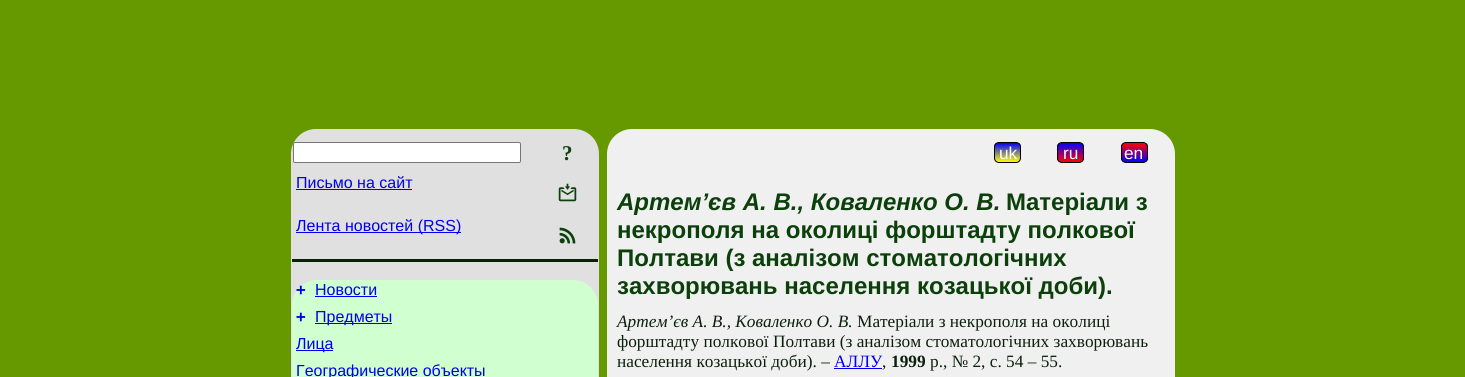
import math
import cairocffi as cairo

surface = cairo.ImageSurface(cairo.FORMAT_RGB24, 1465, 377)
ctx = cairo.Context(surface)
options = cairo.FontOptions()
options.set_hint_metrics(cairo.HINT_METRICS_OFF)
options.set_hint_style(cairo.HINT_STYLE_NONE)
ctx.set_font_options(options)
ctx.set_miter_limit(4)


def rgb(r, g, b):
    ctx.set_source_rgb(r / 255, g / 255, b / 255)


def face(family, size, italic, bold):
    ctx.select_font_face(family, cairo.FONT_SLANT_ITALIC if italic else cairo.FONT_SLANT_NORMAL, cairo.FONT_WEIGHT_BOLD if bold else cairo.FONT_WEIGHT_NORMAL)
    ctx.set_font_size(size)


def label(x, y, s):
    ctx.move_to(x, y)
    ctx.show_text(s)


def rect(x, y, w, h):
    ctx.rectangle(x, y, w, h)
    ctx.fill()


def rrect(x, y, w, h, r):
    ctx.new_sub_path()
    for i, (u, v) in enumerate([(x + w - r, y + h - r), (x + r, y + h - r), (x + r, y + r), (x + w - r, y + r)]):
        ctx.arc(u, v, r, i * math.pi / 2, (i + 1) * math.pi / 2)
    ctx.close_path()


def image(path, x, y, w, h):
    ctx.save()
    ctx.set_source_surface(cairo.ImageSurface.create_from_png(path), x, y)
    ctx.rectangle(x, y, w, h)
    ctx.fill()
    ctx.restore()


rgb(102, 153, 0)
ctx.paint()
rgb(224, 224, 224)
rrect(291, 129, 308, 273, 25)
ctx.fill()
rgb(11, 32, 11)
rect(292, 259, 306, 3)
rgb(255, 255, 255)
rrect(293.5, 142.5, 227, 20, 1.5)
ctx.fill_preserve()
rgb(118, 118, 118)
ctx.set_line_width(1)
ctx.stroke()
face('Liberation Serif', 21, 0, 1)
rgb(11, 64, 11)
label(562, 160, '?')
face('Liberation Sans', 16, 0, 0)
rgb(0, 0, 238)
label(296, 188, 'Письмо на сайт')
rect(296, 189, 116, 1)
image('image0.png', 558, 183, 19, 19)
rect(296, 232, 165, 1)
label(296, 231, 'Лента новостей (RSS)')
image('image1.png', 559, 227, 17, 17)
rgb(208, 255, 208)
rrect(292, 280, 306, 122, 25)
ctx.fill()
face('DejaVu Sans Mono', 16, 0, 1)
rgb(0, 0, 238)
label(296, 295, '+')
face('Liberation Sans', 16, 0, 0)
label(315, 295, 'Новости')
rect(315, 296, 62, 1)
face('DejaVu Sans Mono', 16, 0, 1)
label(296, 322, '+')
rect(315, 323, 77, 1)
face('Liberation Sans', 16, 0, 0)
label(315, 322, 'Предметы')
rect(296, 350, 37, 1)
label(296, 349, 'Лица')
label(296, 376, 'Географические объекты')
rgb(240, 240, 240)
rrect(607, 129, 568, 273, 25)
ctx.fill()
ctx.save()
rrect(994, 142, 27, 21, 5)
ctx.clip()
gradient = cairo.LinearGradient(1008, 143, 1008, 162)
gradient.add_color_stop_rgba(0, 0, 0, 1, 1)
gradient.add_color_stop_rgba(1, 1, 1, 0, 1)
ctx.set_source(gradient)
rect(994, 143, 27, 19)
ctx.restore()
rrect(994.5, 142.5, 26, 20, 4.5)
rgb(0, 0, 0)
ctx.stroke()
face('Liberation Sans', 17.3, 0, 0)
rgb(255, 255, 255)
label(999, 159, 'uk')
ctx.save()
rrect(1057, 142, 27, 21, 5)
ctx.clip()
gradient = cairo.LinearGradient(1071, 143, 1071, 162)
gradient.add_color_stop_rgba(0, 0, 0, 1, 1)
gradient.add_color_stop_rgba(1, 1, 0, 0, 1)
ctx.set_source(gradient)
rect(1057, 143, 27, 19)
ctx.restore()
rrect(1057.5, 142.5, 26, 20, 4.5)
rgb(0, 0, 0)
ctx.stroke()
rgb(255, 255, 255)
label(1063, 159, 'ru')
ctx.save()
rrect(1121, 142, 27, 21, 5)
ctx.clip()
gradient = cairo.LinearGradient(1135, 143, 1135, 162)
gradient.add_color_stop_rgba(0, 1, 0, 0, 1)
gradient.add_color_stop_rgba(1, 0, 0, 1, 1)
ctx.set_source(gradient)
rect(1121, 143, 27, 19)
ctx.restore()
rrect(1121.5, 142.5, 26, 20, 4.5)
rgb(0, 0, 0)
ctx.stroke()
rgb(255, 255, 255)
label(1124, 159, 'en')
face('Liberation Sans', 24, 1, 1)
rgb(11, 64, 11)
label(617, 210, 'Артем’єв А. В., Коваленко О. В.')
face('Liberation Sans', 24, 0, 1)
label(1006, 210, 'Матеріали з')
label(617, 238, 'некрополя на околиці форштадту полкової')
label(617, 266, 'Полтави (з аналізом стоматологічних')
label(617, 294, 'захворювань населення козацької доби).')
face('Liberation Serif', 17.3, 1, 0)
rgb(11, 32, 11)
label(617, 327, 'Артем’єв А. В., Коваленко О. В.')
face('Liberation Serif', 17.3, 0, 0)
label(857, 327, 'Матеріали з некрополя на околиці')
label(617, 347, 'форштадту полкової Полтави (з аналізом стоматологічних захворювань')
label(617, 367, 'населення козацької доби). –')
rgb(0, 0, 238)
label(834, 367, 'АЛЛУ')
rect(834, 368, 48, 1)
rgb(11, 32, 11)
label(882, 367, ',')
face('Liberation Serif', 17.3, 0, 1)
label(891, 367, '1999')
face('Liberation Serif', 17.3, 0, 0)
label(930, 367, 'р., № 2, с. 54 – 55.')
surface.write_to_png('render.png')
